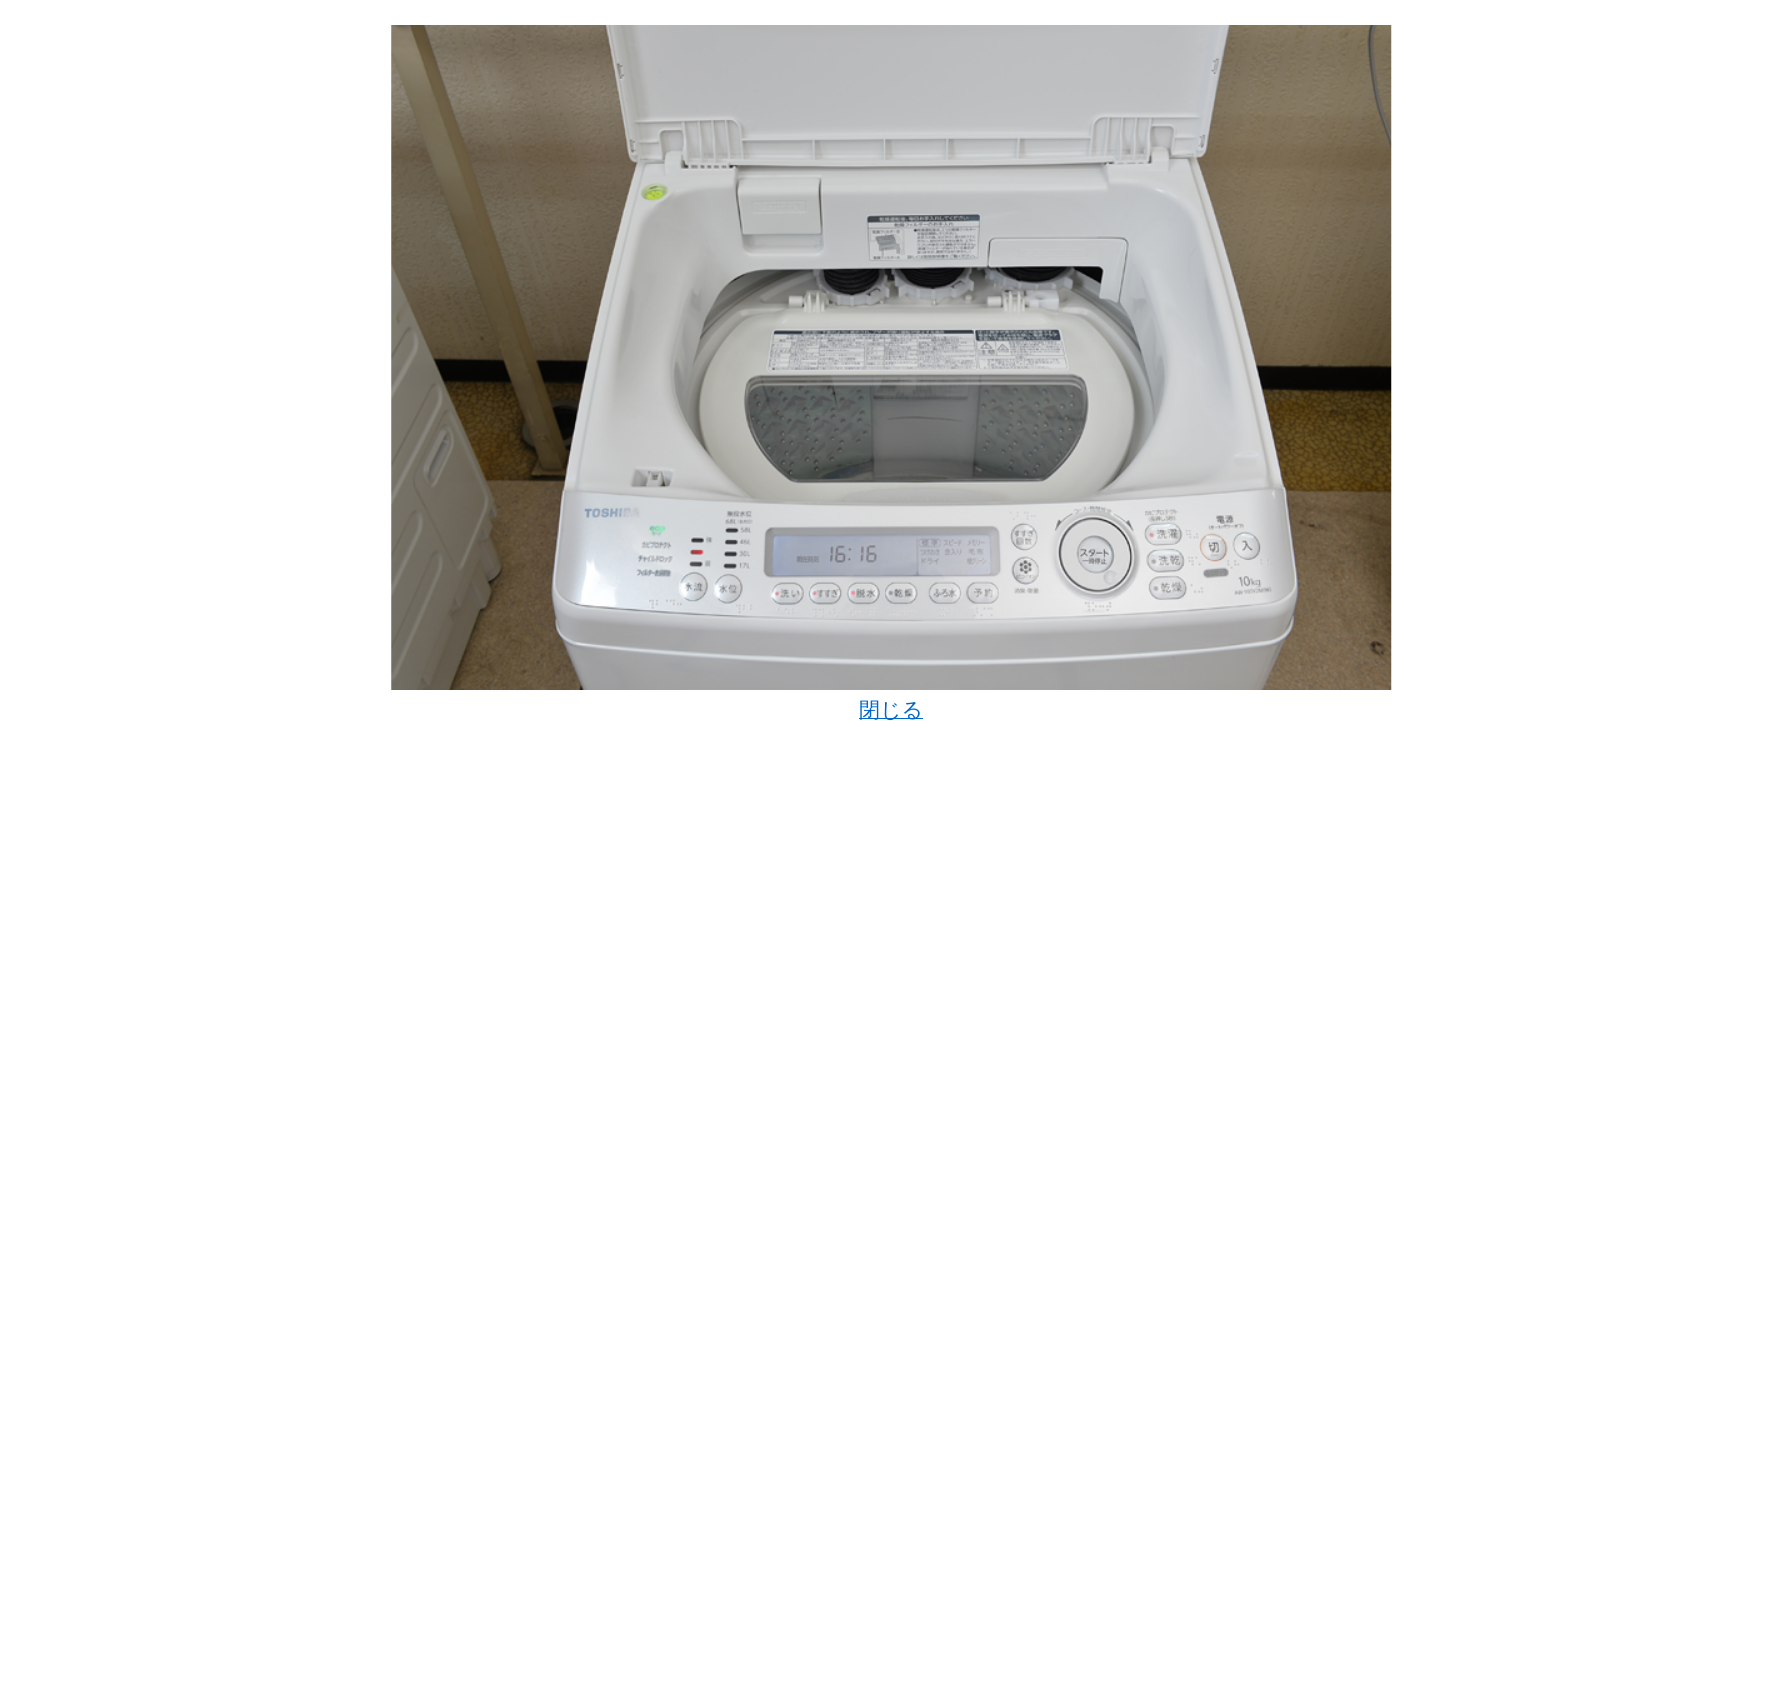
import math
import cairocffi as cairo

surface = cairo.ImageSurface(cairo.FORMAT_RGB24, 1781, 1693)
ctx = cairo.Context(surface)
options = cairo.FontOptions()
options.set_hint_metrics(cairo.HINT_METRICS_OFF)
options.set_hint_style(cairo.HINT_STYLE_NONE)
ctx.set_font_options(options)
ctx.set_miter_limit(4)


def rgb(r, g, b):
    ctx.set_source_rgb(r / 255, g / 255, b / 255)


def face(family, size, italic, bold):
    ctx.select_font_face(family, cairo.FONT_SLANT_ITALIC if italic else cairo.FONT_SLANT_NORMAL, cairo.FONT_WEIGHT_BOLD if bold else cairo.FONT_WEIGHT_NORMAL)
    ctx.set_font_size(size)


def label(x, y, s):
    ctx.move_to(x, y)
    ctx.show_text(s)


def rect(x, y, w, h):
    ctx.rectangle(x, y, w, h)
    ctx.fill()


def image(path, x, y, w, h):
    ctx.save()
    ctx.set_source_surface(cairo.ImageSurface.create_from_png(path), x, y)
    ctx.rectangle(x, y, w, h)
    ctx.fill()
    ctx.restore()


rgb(255, 255, 255)
ctx.paint()
image('image0.png', 391, 25, 1001, 665)
rgb(0, 102, 204)
rect(859, 718, 64, 1)
face('WenQuanYi Zen Hei Medium', 21, 0, 0)
label(859, 717, '閉じる')
surface.write_to_png('render.png')
